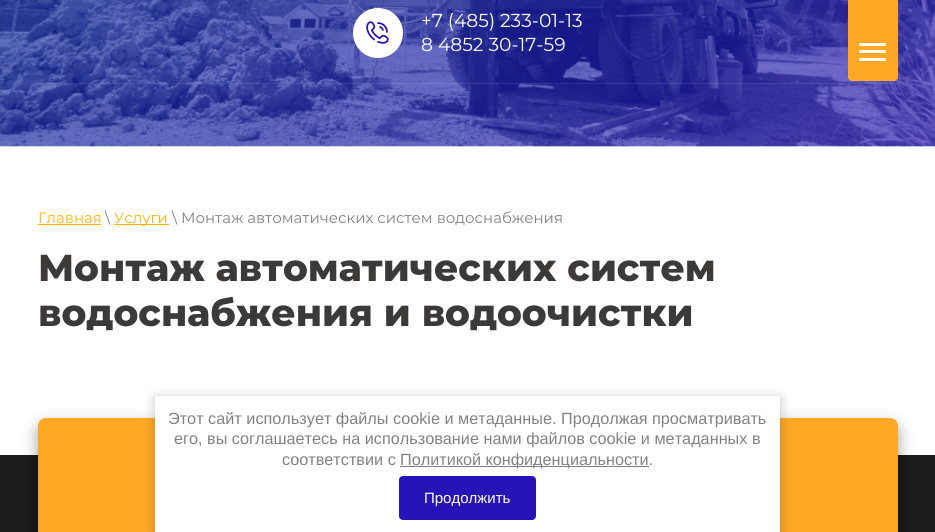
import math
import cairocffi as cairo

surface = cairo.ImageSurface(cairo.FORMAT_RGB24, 935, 532)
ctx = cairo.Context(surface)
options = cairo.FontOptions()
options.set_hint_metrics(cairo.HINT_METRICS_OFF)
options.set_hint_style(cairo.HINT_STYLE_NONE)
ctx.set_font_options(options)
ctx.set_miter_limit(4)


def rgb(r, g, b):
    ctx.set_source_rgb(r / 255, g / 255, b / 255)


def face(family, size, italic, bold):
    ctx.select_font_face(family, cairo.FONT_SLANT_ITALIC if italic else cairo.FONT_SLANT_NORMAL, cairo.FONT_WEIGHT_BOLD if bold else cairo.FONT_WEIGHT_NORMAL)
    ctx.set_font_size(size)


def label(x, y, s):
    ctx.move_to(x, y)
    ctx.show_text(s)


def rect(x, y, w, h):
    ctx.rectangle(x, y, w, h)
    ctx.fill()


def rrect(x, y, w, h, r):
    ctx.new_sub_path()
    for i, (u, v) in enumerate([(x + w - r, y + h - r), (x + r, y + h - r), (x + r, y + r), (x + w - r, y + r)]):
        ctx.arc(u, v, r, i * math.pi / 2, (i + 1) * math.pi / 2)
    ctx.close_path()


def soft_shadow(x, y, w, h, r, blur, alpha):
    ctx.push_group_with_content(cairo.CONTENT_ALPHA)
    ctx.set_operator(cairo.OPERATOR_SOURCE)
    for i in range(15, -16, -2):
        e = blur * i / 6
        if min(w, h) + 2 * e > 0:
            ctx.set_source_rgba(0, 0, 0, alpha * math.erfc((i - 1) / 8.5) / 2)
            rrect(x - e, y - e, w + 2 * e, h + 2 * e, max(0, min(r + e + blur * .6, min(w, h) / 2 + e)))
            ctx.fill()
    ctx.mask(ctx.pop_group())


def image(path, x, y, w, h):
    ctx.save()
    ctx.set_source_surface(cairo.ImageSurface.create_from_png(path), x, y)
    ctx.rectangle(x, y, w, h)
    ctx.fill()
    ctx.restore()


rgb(255, 255, 255)
ctx.paint()
image('image0.png', 0, 0, 935, 147)
ctx.set_source_rgba(1, 1, 1, 0.1)
rect(38, 83, 860, 1)
rgb(255, 255, 255)
ctx.arc(378, 33, 25, 0, 2 * math.pi)
ctx.fill()
image('image1.png', 366, 21, 23, 23)
face('Montserrat', 18.75, 0, 0)
label(421, 27, '+7 (485) 233-01-13')
label(421, 51, '8 4852 30-17-59')
rgb(255, 168, 38)
ctx.new_path()
ctx.move_to(848, 0)
ctx.line_to(898, 0)
ctx.line_to(898, 77)
ctx.curve_to(898, 79, 896, 81, 894, 81)
ctx.line_to(852, 81)
ctx.curve_to(850, 81, 848, 79, 848, 77)
ctx.close_path()
ctx.fill()
rgb(255, 255, 255)
rrect(859, 43, 27, 3, 1.5)
ctx.fill()
rrect(859, 50, 27, 3, 1.5)
ctx.fill()
rrect(859, 58, 27, 3, 1.5)
ctx.fill()
face('Montserrat', 15, 0, 0)
rgb(255, 179, 0)
label(38, 223, 'Главная')
rect(38, 224, 63, 1)
rgb(130, 130, 130)
label(105, 223, '\\')
rgb(255, 179, 0)
rect(114, 224, 55, 1)
label(114, 223, 'Услуги')
rgb(130, 130, 130)
label(172, 223, '\\ Монтаж автоматических систем водоснабжения')
face('Montserrat ExtraBold', 37.5, 0, 0)
rgb(60, 57, 57)
label(38, 281, 'Монтаж автоматических систем')
label(38, 326, 'водоснабжения и водоочистки')
rgb(28, 28, 28)
rect(0, 455, 935, 77)
rgb(0, 0, 0)
soft_shadow(38, 425, 860, 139, 8, 8, 0.37)
rgb(255, 168, 38)
rrect(38, 418, 860, 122, 8)
ctx.fill()
rgb(0, 0, 0)
soft_shadow(155, 398, 625, 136, 0, 6, 0.23)
rgb(255, 255, 255)
rect(155, 396, 625, 136)
face('Liberation Sans', 16.25, 0, 0)
rgb(130, 130, 130)
label(168, 424, 'Этот сайт использует файлы cookie и метаданные. Продолжая просматривать')
label(174, 444, 'его, вы соглашаетесь на использование нами файлов cookie и метаданных в')
label(282, 465, 'соответствии с')
rgb(128, 128, 128)
rect(400, 466, 249, 1)
rgb(130, 130, 130)
label(400, 465, 'Политикой конфиденциальности.')
rgb(39, 20, 184)
rrect(399, 476, 137, 44, 4)
ctx.fill()
face('Liberation Sans', 15, 0, 0)
rgb(255, 255, 255)
label(424, 503, 'Продолжить')
surface.write_to_png('render.png')
